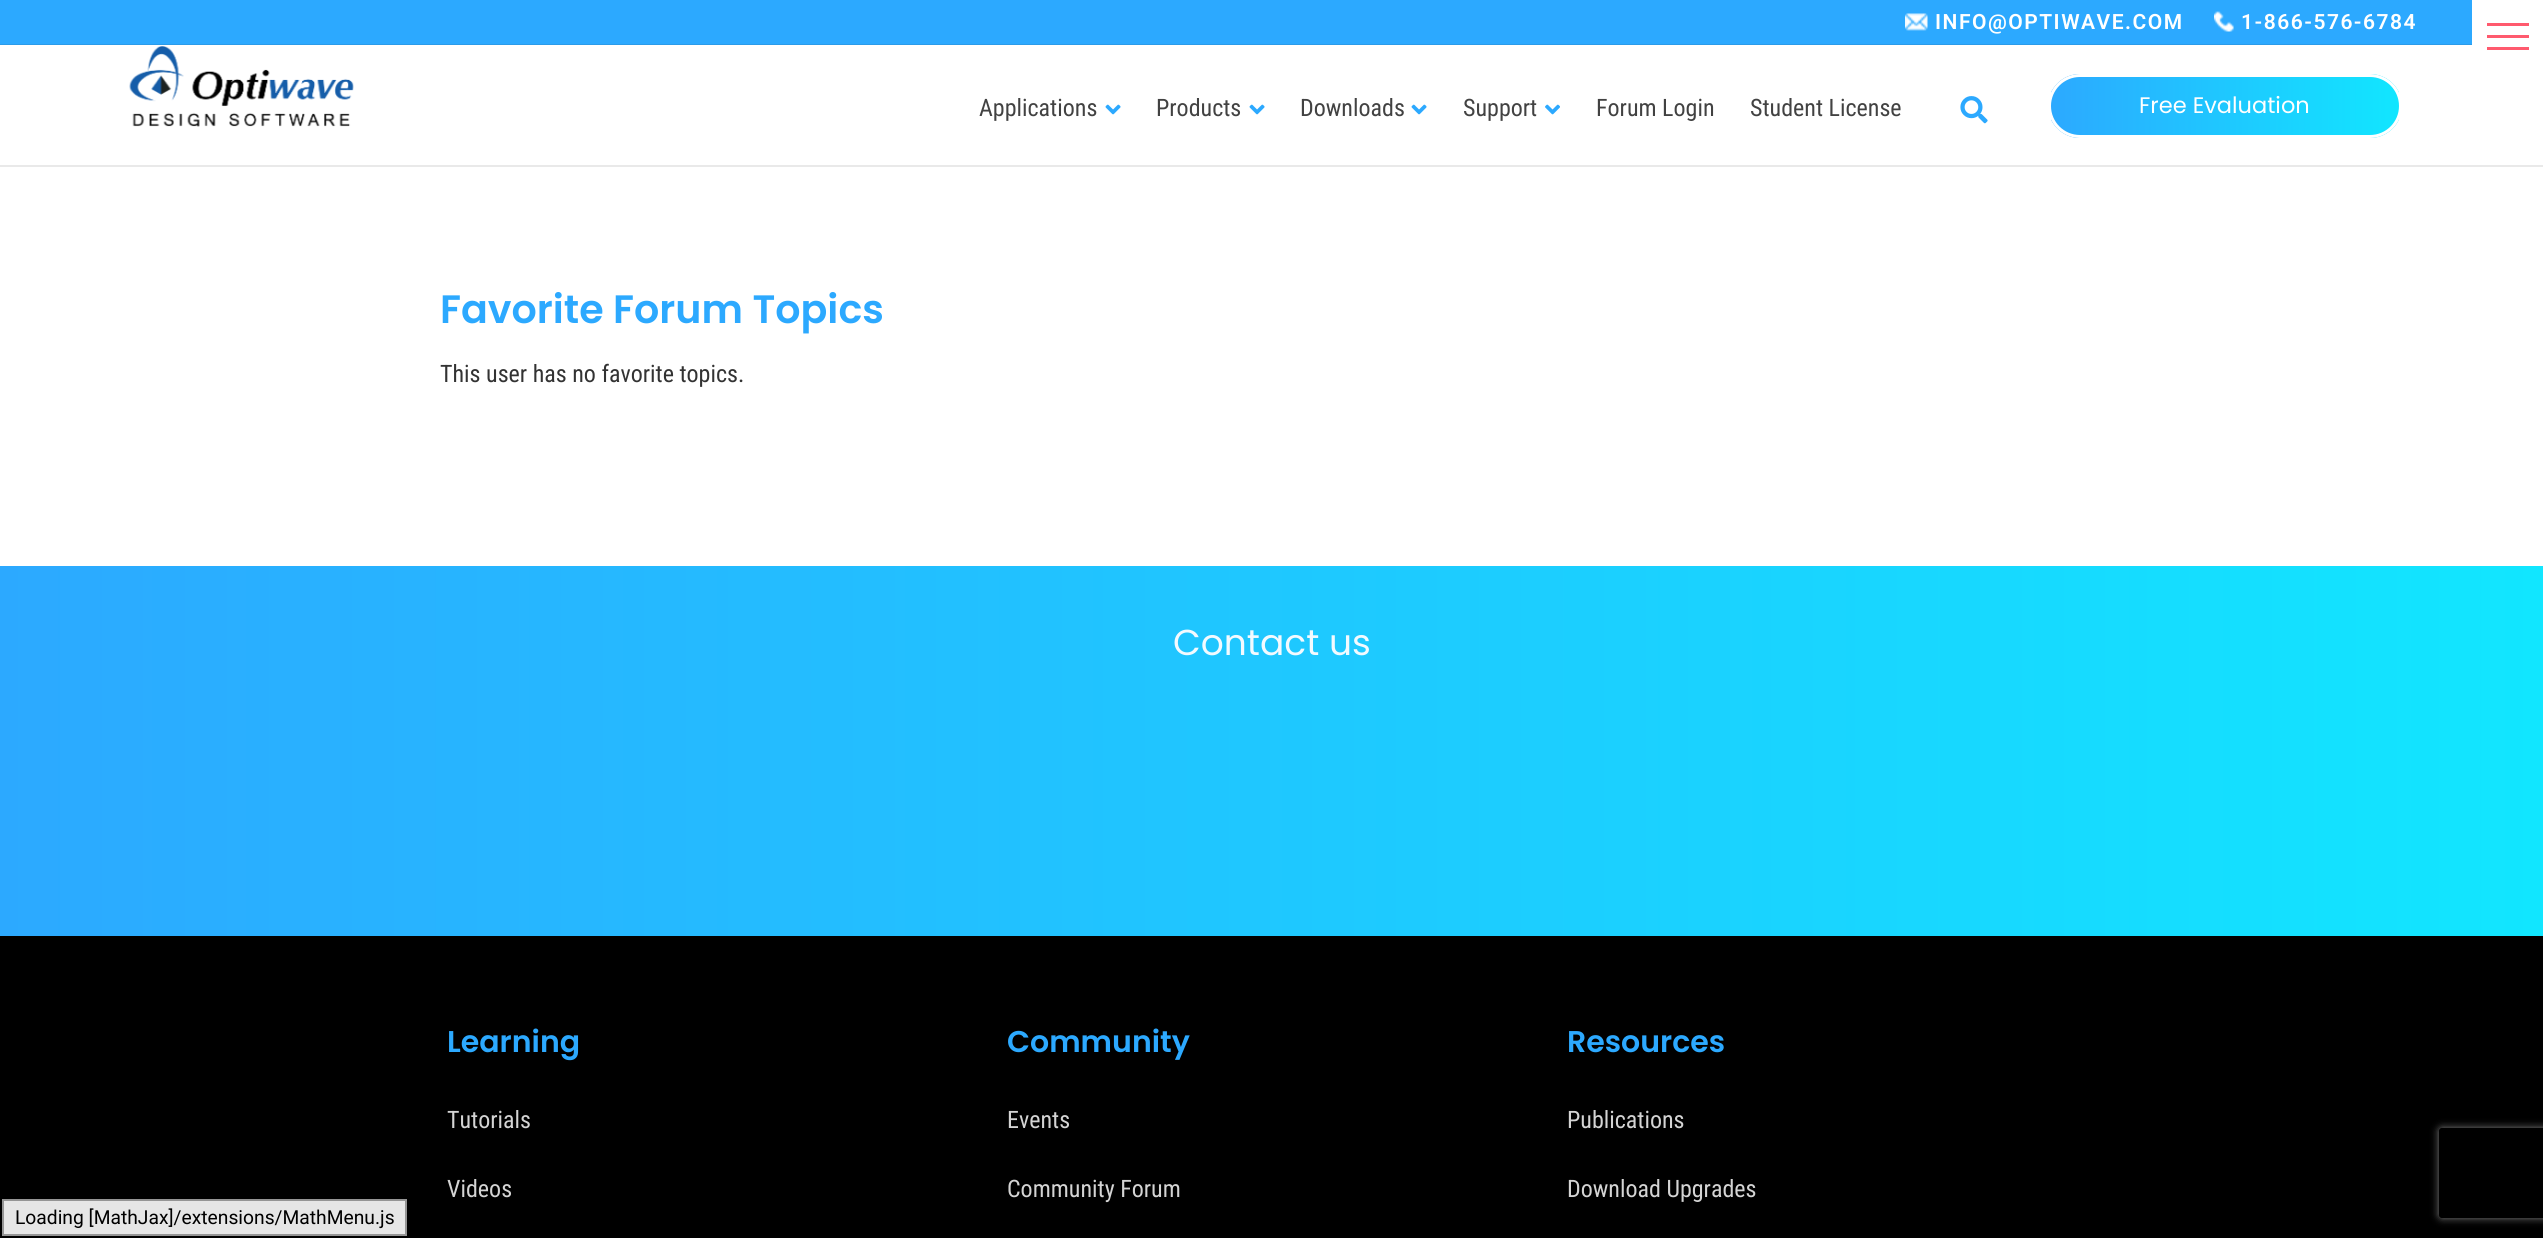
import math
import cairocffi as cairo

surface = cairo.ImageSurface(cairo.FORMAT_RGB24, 2543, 1238)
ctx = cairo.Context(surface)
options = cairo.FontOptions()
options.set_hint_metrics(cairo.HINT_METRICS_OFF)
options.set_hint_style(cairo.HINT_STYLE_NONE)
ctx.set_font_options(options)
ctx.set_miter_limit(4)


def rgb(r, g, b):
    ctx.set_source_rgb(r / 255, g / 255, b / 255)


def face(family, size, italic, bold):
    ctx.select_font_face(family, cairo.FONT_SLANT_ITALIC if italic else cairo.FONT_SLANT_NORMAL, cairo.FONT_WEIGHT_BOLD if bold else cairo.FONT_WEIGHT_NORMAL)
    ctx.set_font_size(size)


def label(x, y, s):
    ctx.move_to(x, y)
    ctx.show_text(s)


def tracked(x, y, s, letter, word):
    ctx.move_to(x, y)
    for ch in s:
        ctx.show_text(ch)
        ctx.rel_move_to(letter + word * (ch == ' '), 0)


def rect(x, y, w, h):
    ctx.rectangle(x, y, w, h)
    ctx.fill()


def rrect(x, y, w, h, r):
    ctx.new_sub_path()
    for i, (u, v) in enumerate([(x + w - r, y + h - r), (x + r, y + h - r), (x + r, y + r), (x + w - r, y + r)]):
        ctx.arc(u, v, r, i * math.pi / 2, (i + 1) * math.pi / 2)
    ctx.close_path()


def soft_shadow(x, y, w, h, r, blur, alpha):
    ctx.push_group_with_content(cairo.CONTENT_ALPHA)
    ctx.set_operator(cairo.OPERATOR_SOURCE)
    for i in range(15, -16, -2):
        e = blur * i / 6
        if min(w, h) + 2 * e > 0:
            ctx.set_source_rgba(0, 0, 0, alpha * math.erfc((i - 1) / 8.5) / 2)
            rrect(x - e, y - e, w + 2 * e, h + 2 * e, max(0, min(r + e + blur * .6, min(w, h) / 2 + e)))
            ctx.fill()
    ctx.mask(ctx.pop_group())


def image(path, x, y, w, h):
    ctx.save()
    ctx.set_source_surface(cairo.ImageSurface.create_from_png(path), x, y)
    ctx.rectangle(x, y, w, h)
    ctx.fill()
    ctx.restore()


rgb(255, 255, 255)
ctx.paint()
rgb(44, 169, 255)
rect(0, 0, 2472, 45)
ctx.set_source_rgba(0.141, 0.141, 0.141, 0.1)
rect(0, 44, 2472, 1)
image('image0.png', 1905, 13, 23, 18)
face('Roboto SemiBold', 21, 0, 0)
rgb(255, 255, 255)
tracked(1935, 29, 'INFO@OPTIWAVE.COM', 1.5, 0)
image('image1.png', 2214, 11, 20, 21)
tracked(2241, 29, '1-866-576-6784', 1.5, 0)
rgb(233, 233, 233)
rect(0, 165, 2543, 2)
image('image2.png', 129, 46, 225, 81)
face('Roboto Condensed', 24, 0, 0)
rgb(66, 66, 66)
label(979, 116, 'Applications')
image('image3.png', 1105, 104, 16, 11)
label(1156, 116, 'Products')
image('image3.png', 1249, 104, 16, 11)
label(1300, 116, 'Downloads')
image('image3.png', 1411, 104, 16, 11)
label(1463, 116, 'Support')
image('image4.png', 1545, 104, 15, 11)
label(1596, 116, 'Forum Login')
label(1750, 116, 'Student License')
image('image5.png', 1960, 96, 28, 28)
ctx.save()
rrect(2048, 74, 354, 64, 32)
ctx.clip()
gradient = cairo.LinearGradient(2051, 106, 2399, 106)
gradient.add_color_stop_rgba(0, 0.173, 0.663, 1, 1)
gradient.add_color_stop_rgba(1, 0.067, 0.902, 1, 1)
ctx.set_source(gradient)
rect(2051, 74, 348, 64)
ctx.restore()
rrect(2049.5, 75.5, 351, 61, 30.5)
rgb(255, 255, 255)
ctx.set_line_width(3)
ctx.stroke()
face('Poppins', 22.5, 0, 0)
label(2139, 113, 'Free Evaluation')
rgb(255, 90, 110)
rect(2487, 35, 42, 3)
rect(2487, 23, 42, 3)
rect(2487, 47, 42, 3)
face('Poppins SemiBold', 39.6, 0, 0)
rgb(44, 169, 255)
label(440, 323, 'Favorite Forum Topics')
face('Roboto Condensed', 24, 0, 0)
rgb(51, 51, 51)
label(440, 382, 'This user has no favorite topics.')
rgb(0, 0, 0)
rect(0, 936, 2543, 302)
rgb(230, 230, 230)
ctx.rectangle(3, 1200, 403, 35)
ctx.fill_preserve()
rgb(149, 149, 149)
ctx.set_line_width(2)
ctx.stroke()
face('Roboto', 19.25, 0, 0)
rgb(0, 0, 0)
label(15, 1224, 'Loading [MathJax]/extensions/MathMenu.js')
gradient = cairo.LinearGradient(0, 751, 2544, 751)
gradient.add_color_stop_rgba(0, 0.173, 0.663, 1, 1)
gradient.add_color_stop_rgba(1, 0.067, 0.902, 1, 1)
ctx.set_source(gradient)
rect(0, 566, 2543, 370)
face('Poppins', 36, 0, 0)
rgb(243, 250, 255)
label(1173, 655, 'Contact us')
face('Poppins SemiBold', 30, 0, 0)
rgb(44, 169, 255)
label(447, 1052, 'Learning')
face('Roboto Condensed', 24, 0, 0)
rgb(212, 212, 212)
label(447, 1128, 'Tutorials')
label(447, 1197, 'Videos')
face('Poppins SemiBold', 30, 0, 0)
rgb(44, 169, 255)
label(1007, 1052, 'Community')
face('Roboto Condensed', 24, 0, 0)
rgb(212, 212, 212)
label(1007, 1128, 'Events')
label(1007, 1197, 'Community Forum')
face('Poppins SemiBold', 30, 0, 0)
rgb(44, 169, 255)
label(1567, 1052, 'Resources')
face('Roboto Condensed', 24, 0, 0)
rgb(212, 212, 212)
label(1567, 1128, 'Publications')
label(1567, 1197, 'Download Upgrades')
ctx.save()
ctx.set_fill_rule(cairo.FILL_RULE_EVEN_ODD)
ctx.new_path()
ctx.move_to(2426, 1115)
ctx.line_to(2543, 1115)
ctx.line_to(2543, 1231)
ctx.line_to(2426, 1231)
ctx.close_path()
ctx.move_to(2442, 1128)
ctx.line_to(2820, 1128)
ctx.curve_to(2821.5, 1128, 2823, 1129.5, 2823, 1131)
ctx.line_to(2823, 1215)
ctx.curve_to(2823, 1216.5, 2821.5, 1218, 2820, 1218)
ctx.line_to(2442, 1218)
ctx.curve_to(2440.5, 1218, 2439, 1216.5, 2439, 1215)
ctx.line_to(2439, 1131)
ctx.curve_to(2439, 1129.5, 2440.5, 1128, 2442, 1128)
ctx.close_path()
ctx.clip()
rgb(128, 128, 128)
soft_shadow(2439, 1128, 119, 90, 3, 4, 1)
ctx.restore()
surface.write_to_png('render.png')
